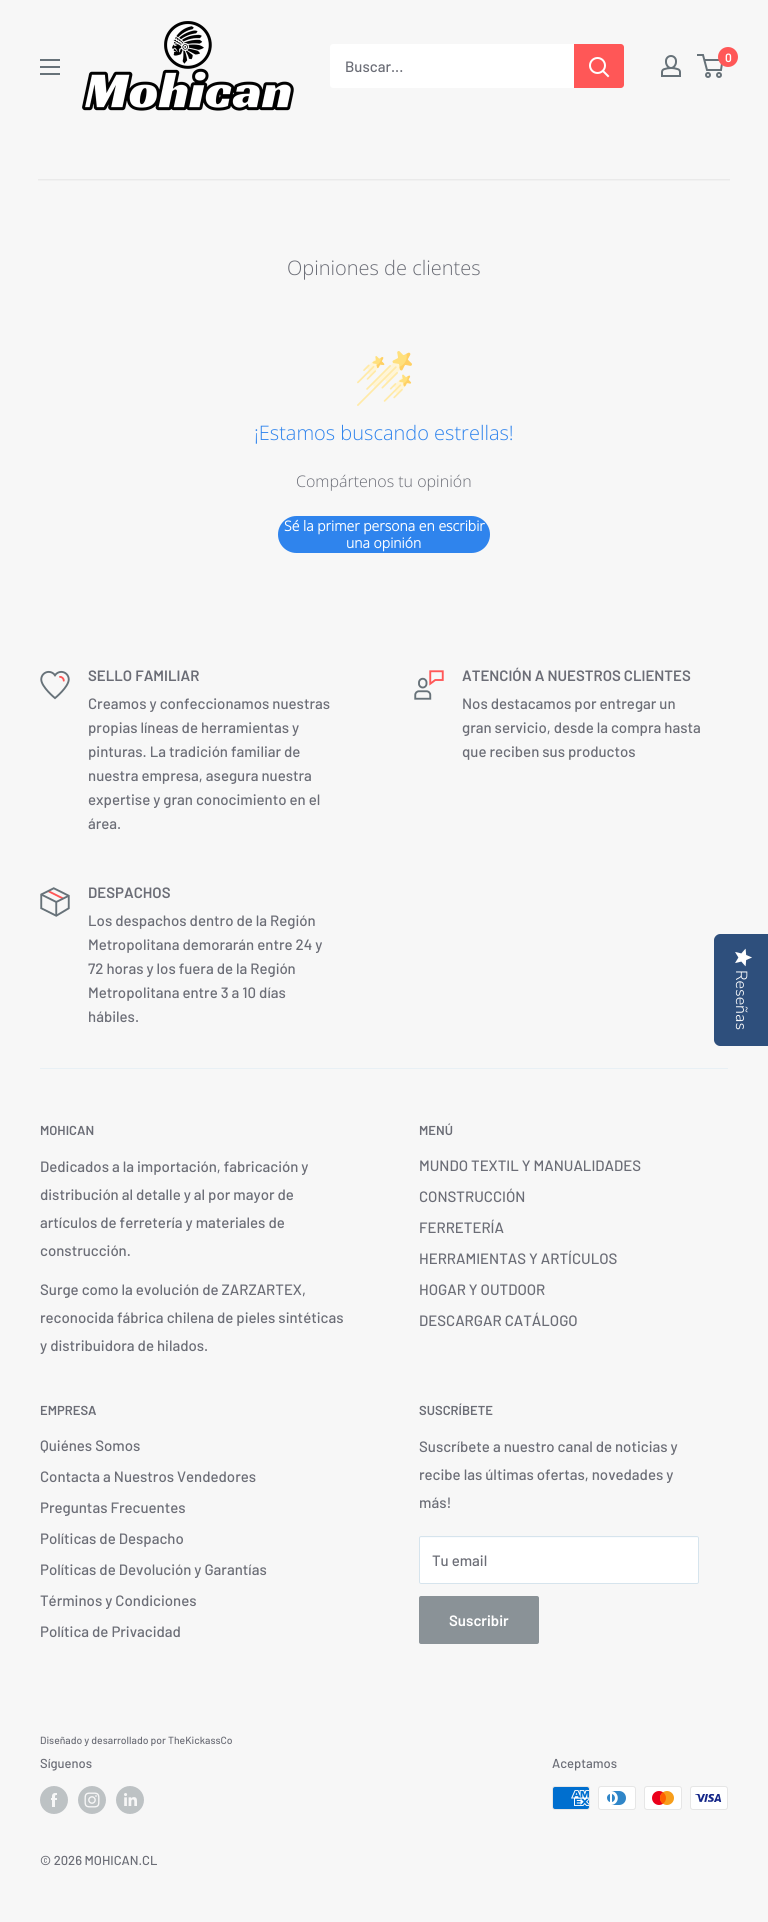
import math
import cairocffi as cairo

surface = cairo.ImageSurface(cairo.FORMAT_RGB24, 768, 1922)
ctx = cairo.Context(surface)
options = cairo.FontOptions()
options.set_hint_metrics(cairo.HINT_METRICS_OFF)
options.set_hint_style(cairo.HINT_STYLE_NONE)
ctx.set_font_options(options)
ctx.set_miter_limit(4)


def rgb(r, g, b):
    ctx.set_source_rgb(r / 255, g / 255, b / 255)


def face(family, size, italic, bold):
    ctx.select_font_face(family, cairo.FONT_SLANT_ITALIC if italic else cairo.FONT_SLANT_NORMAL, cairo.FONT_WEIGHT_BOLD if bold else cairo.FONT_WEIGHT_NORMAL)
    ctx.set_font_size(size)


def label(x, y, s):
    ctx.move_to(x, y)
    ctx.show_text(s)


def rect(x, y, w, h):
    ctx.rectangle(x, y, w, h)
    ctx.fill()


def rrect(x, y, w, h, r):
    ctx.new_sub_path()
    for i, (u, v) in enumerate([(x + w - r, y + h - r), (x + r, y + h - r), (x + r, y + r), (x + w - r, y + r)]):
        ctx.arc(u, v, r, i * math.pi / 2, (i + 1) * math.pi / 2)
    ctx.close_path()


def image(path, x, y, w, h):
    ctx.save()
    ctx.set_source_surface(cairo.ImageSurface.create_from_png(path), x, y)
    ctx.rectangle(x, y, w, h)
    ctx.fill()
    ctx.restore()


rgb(247, 247, 247)
ctx.paint()
image('image0.png', 82, 21, 212, 90)
image('image1.png', 661, 55, 20, 22)
ctx.arc(708, 75, 2, 0, 2 * math.pi)
rgb(103, 114, 121)
ctx.stroke()
ctx.arc(719, 75, 2, 0, 2 * math.pi)
ctx.stroke()
ctx.new_path()
ctx.move_to(704.5, 60)
ctx.line_to(722.5, 60)
ctx.line_to(721, 70)
ctx.line_to(707, 70)
ctx.line_to(703, 55)
ctx.line_to(697, 55)
ctx.stroke()
rgb(255, 87, 87)
ctx.arc(728, 57, 10, 0, 2 * math.pi)
ctx.fill()
face('Barlow SemiBold', 12, 0, 0)
rgb(255, 255, 255)
label(725, 62, '0')
image('image2.png', 40, 59, 20, 16)
rrect(330, 44, 294, 44, 3)
ctx.fill()
face('Barlow Medium', 15, 0, 0)
rgb(107, 109, 118)
label(345, 72, 'Buscar...')
rgb(255, 87, 87)
ctx.new_path()
ctx.move_to(574, 44)
ctx.line_to(621, 44)
ctx.curve_to(622.5, 44, 624, 45.5, 624, 47)
ctx.line_to(624, 85)
ctx.curve_to(624, 86.5, 622.5, 88, 621, 88)
ctx.line_to(574, 88)
ctx.close_path()
ctx.fill()
ctx.new_path()
ctx.move_to(608, 76)
ctx.line_to(603, 71)
rgb(255, 255, 255)
ctx.set_line_cap(cairo.LINE_CAP_SQUARE)
ctx.stroke()
ctx.arc(597.5, 65.5, 7.5, 0, 2 * math.pi)
ctx.set_line_cap(cairo.LINE_CAP_BUTT)
ctx.stroke()
image('image3.png', 38, 179, 692, 2)
face('Open Sans Light', 20, 0, 0)
rgb(107, 109, 118)
label(287, 275, 'Opiniones de clientes')
image('image4.png', 357, 351, 55, 55)
rgb(47, 132, 237)
label(254, 440, '¡Estamos buscando estrellas!')
face('Open Sans Light', 16, 0, 0)
rgb(107, 109, 118)
label(296, 487, 'Compártenos tu opinión')
rgb(47, 132, 237)
rrect(278, 516, 212, 37, 18.5)
ctx.fill()
face('Open Sans', 14, 0, 1)
rgb(255, 255, 255)
label(284, 531, 'Sé la primer persona en escribir')
label(346, 548, 'una opinión')
image('image5.png', 40, 670, 30, 30)
face('Barlow SemiBold', 15, 0, 0)
rgb(107, 109, 118)
label(88, 681, 'SELLO FAMILIAR')
face('Barlow Medium', 15, 0, 0)
label(88, 709, 'Creamos y confeccionamos nuestras')
label(88, 733, 'propias líneas de herramientas y')
label(88, 757, 'pinturas. La tradición familiar de')
label(88, 781, 'nuestra empresa, asegura nuestra')
label(88, 805, 'expertise y gran conocimiento en el')
label(88, 829, 'área.')
image('image6.png', 414, 670, 30, 30)
face('Barlow SemiBold', 15, 0, 0)
label(462, 681, 'ATENCIÓN A NUESTROS CLIENTES')
face('Barlow Medium', 15, 0, 0)
label(462, 709, 'Nos destacamos por entregar un')
label(462, 733, 'gran servicio, desde la compra hasta')
label(462, 757, 'que reciben sus productos')
image('image7.png', 40, 887, 30, 30)
face('Barlow SemiBold', 15, 0, 0)
label(88, 898, 'DESPACHOS')
face('Barlow Medium', 15, 0, 0)
label(88, 926, 'Los despachos dentro de la Región')
label(88, 950, 'Metropolitana demorarán entre 24 y')
label(88, 974, '72 horas y los fuera de la Región')
label(88, 998, 'Metropolitana entre 3 a 10 días')
label(88, 1022, 'hábiles.')
rgb(46, 79, 124)
ctx.new_path()
ctx.move_to(768, 934)
ctx.line_to(768, 1046)
ctx.line_to(720, 1046)
ctx.curve_to(717, 1046, 714, 1043, 714, 1040)
ctx.line_to(714, 940)
ctx.curve_to(714, 937, 717, 934, 720, 934)
ctx.close_path()
ctx.fill()
image('image8.png', 735, 948, 17, 19)
face('Nunito Sans Light', 16, 0, 0)
rgb(255, 255, 255)
ctx.save()
ctx.translate(736, 970)
ctx.rotate(90 * math.pi / 180)
label(0, 0, 'Reseñas')
ctx.restore()
rgb(232, 240, 245)
rect(40, 1068, 688, 1)
face('Barlow SemiBold', 13, 0, 0)
rgb(107, 109, 118)
label(40, 1135, 'MOHICAN')
face('Barlow Medium', 15, 0, 0)
label(40, 1172, 'Dedicados a la importación, fabricación y')
label(40, 1200, 'distribución al detalle y al por mayor de')
label(40, 1228, 'artículos de ferretería y materiales de')
label(40, 1256, 'construcción.')
label(40, 1295, 'Surge como la evolución de ZARZARTEX,')
label(40, 1323, 'reconocida fábrica chilena de pieles sintéticas')
label(40, 1351, 'y distribuidora de hilados.')
face('Barlow SemiBold', 13, 0, 0)
label(419, 1135, 'MENÚ')
face('Barlow Medium', 15, 0, 0)
label(419, 1171, 'MUNDO TEXTIL Y MANUALIDADES')
label(419, 1202, 'CONSTRUCCIÓN')
label(419, 1233, 'FERRETERÍA')
label(419, 1264, 'HERRAMIENTAS Y ARTÍCULOS')
label(419, 1295, 'HOGAR Y OUTDOOR')
label(419, 1326, 'DESCARGAR CATÁLOGO')
face('Barlow SemiBold', 13, 0, 0)
label(40, 1415, 'EMPRESA')
face('Barlow Medium', 15, 0, 0)
label(40, 1451, 'Quiénes Somos')
label(40, 1482, 'Contacta a Nuestros Vendedores')
label(40, 1513, 'Preguntas Frecuentes')
label(40, 1544, 'Políticas de Despacho')
label(40, 1575, 'Políticas de Devolución y Garantías')
label(40, 1606, 'Términos y Condiciones')
label(40, 1637, 'Política de Privacidad')
face('Barlow SemiBold', 13, 0, 0)
label(419, 1415, 'SUSCRÍBETE')
face('Barlow Medium', 15, 0, 0)
label(419, 1452, 'Suscríbete a nuestro canal de noticias y')
label(419, 1480, 'recibe las últimas ofertas, novedades y')
label(419, 1508, 'más!')
rgb(255, 255, 255)
rrect(419, 1536, 280, 48, 2)
ctx.fill()
rgb(249, 251, 253)
ctx.new_path()
ctx.move_to(421, 1538)
ctx.line_to(697, 1538)
ctx.curve_to(698, 1538, 698, 1538, 698, 1539)
ctx.curve_to(698, 1538, 698, 1537, 697, 1537)
ctx.line_to(421, 1537)
ctx.line_to(420, 1537)
ctx.line_to(420, 1539)
ctx.curve_to(420, 1538, 420, 1538, 421, 1538)
ctx.close_path()
ctx.fill()
rrect(419.5, 1536.5, 279, 47, 1.5)
rgb(214, 228, 237)
ctx.set_line_width(1)
ctx.stroke()
rgb(107, 109, 118)
label(432, 1566, 'Tu email')
rgb(138, 146, 151)
rrect(419, 1596, 120, 48, 2)
ctx.fill()
face('Barlow SemiBold', 15, 0, 0)
rgb(255, 255, 255)
label(449, 1626, 'Suscribir')
face('Barlow Medium', 10.4, 0, 0)
rgb(107, 109, 118)
label(40, 1744, 'Diseñado y desarrollado por TheKickassCo')
face('Barlow Medium', 13, 0, 0)
label(40, 1768, 'Síguenos')
image('image9.png', 40, 1786, 28, 28)
image('image10.png', 78, 1786, 28, 28)
image('image11.png', 116, 1786, 28, 28)
label(552, 1768, 'Aceptamos')
image('image12.png', 552, 1786, 38, 24)
image('image13.png', 598, 1786, 38, 24)
image('image14.png', 644, 1786, 38, 24)
image('image15.png', 690, 1786, 38, 24)
label(40, 1865, '© 2026 MOHICAN.CL')
surface.write_to_png('render.png')
